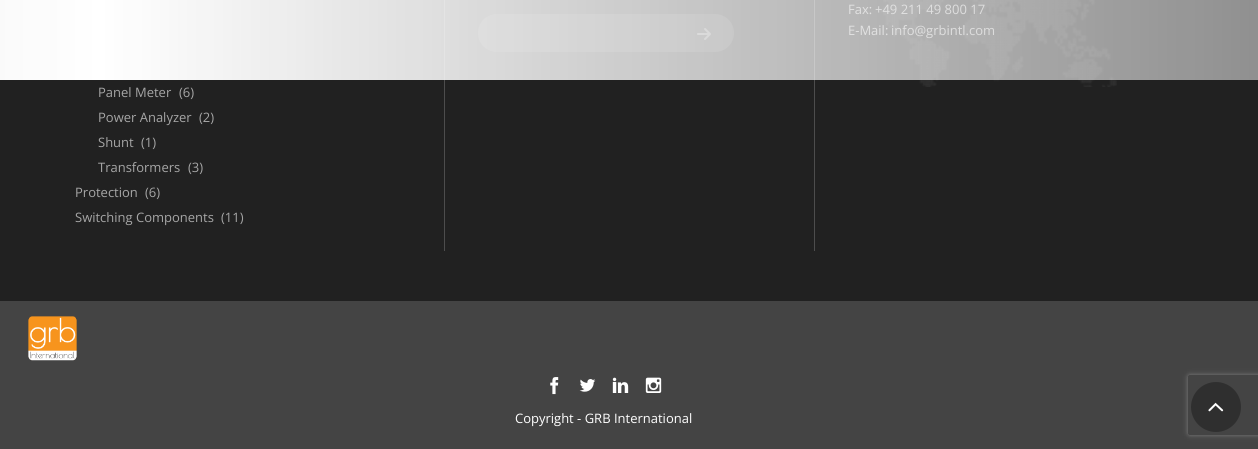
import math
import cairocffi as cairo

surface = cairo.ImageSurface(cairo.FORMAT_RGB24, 1258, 449)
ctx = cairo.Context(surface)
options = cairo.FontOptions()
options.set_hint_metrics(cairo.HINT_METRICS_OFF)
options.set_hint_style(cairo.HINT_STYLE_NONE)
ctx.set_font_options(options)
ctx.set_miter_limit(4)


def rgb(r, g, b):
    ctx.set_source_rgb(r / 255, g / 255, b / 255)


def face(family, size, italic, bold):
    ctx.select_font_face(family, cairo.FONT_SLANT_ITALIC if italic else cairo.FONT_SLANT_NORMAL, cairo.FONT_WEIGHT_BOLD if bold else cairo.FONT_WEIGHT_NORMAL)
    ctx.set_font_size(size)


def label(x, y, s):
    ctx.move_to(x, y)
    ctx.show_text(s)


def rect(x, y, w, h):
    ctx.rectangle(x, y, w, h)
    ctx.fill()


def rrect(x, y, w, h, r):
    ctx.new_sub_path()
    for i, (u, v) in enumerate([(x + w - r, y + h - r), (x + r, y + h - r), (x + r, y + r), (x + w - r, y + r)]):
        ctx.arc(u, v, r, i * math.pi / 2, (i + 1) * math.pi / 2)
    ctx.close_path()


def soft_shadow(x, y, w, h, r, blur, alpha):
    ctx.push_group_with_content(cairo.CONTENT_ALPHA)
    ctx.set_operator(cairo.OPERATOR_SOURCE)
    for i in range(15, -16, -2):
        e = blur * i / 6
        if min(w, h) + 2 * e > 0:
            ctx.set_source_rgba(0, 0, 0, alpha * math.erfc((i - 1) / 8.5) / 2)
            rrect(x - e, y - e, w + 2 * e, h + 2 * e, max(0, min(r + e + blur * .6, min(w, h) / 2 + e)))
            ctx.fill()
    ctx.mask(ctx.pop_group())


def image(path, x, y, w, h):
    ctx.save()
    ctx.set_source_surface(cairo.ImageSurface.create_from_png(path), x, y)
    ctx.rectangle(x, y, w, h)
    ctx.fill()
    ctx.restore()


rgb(33, 33, 33)
ctx.paint()
rgb(77, 77, 77)
rect(444, 0, 1, 251)
rgb(55, 55, 55)
rrect(478, 14, 256, 38, 19)
ctx.fill()
image('image0.png', 697, 28, 14, 12)
rgb(77, 77, 77)
rect(814, 0, 1, 251)
image('image1.png', 880, 0, 237, 87)
face('Open Sans', 13, 0, 0)
rgb(166, 166, 166)
label(848, 14, 'Fax:')
label(875, 14, '+49 211 49 800 17')
label(848, 35, 'E-Mail:')
label(891, 35, 'info@grbintl.com')
gradient = cairo.LinearGradient(-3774, -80, 1258, -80)
gradient.add_color_stop_rgba(0, 1, 1, 1, 1)
gradient.add_color_stop_rgba(0.33, 1, 1, 1, 0.5)
gradient.add_color_stop_rgba(0.77, 1, 1, 1, 1)
gradient.add_color_stop_rgba(1, 1, 1, 1, 0.5)
ctx.set_source(gradient)
rect(0, 0, 1258, 80)
rgb(166, 166, 166)
label(98, 97, 'Panel Meter')
label(179, 97, '(6)')
label(98, 122, 'Power Analyzer')
label(199, 122, '(2)')
label(98, 147, 'Shunt')
label(141, 147, '(1)')
label(98, 172, 'Transformers')
label(188, 172, '(3)')
label(75, 197, 'Protection')
label(145, 197, '(6)')
label(75, 222, 'Switching Components')
label(221, 222, '(11)')
rgb(68, 68, 68)
rect(0, 301, 1258, 148)
image('image2.png', 28, 316, 49, 45)
image('image3.png', 550, 377, 9, 18)
image('image4.png', 579, 379, 17, 13)
image('image5.png', 612, 377, 17, 16)
image('image6.png', 645, 377, 17, 16)
rgb(255, 255, 255)
label(515, 423, 'Copyright - GRB International')
ctx.save()
ctx.set_fill_rule(cairo.FILL_RULE_EVEN_ODD)
ctx.new_path()
ctx.move_to(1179, 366)
ctx.line_to(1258, 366)
ctx.line_to(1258, 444)
ctx.line_to(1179, 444)
ctx.close_path()
ctx.move_to(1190, 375)
ctx.line_to(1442, 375)
ctx.curve_to(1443, 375, 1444, 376, 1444, 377)
ctx.line_to(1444, 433)
ctx.curve_to(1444, 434, 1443, 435, 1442, 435)
ctx.line_to(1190, 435)
ctx.curve_to(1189, 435, 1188, 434, 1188, 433)
ctx.line_to(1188, 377)
ctx.curve_to(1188, 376, 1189, 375, 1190, 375)
ctx.close_path()
ctx.clip()
rgb(128, 128, 128)
soft_shadow(1188, 375, 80, 60, 2, 2.5, 1)
ctx.restore()
image('image7.png', 1191, 382, 50, 50)
surface.write_to_png('render.png')
